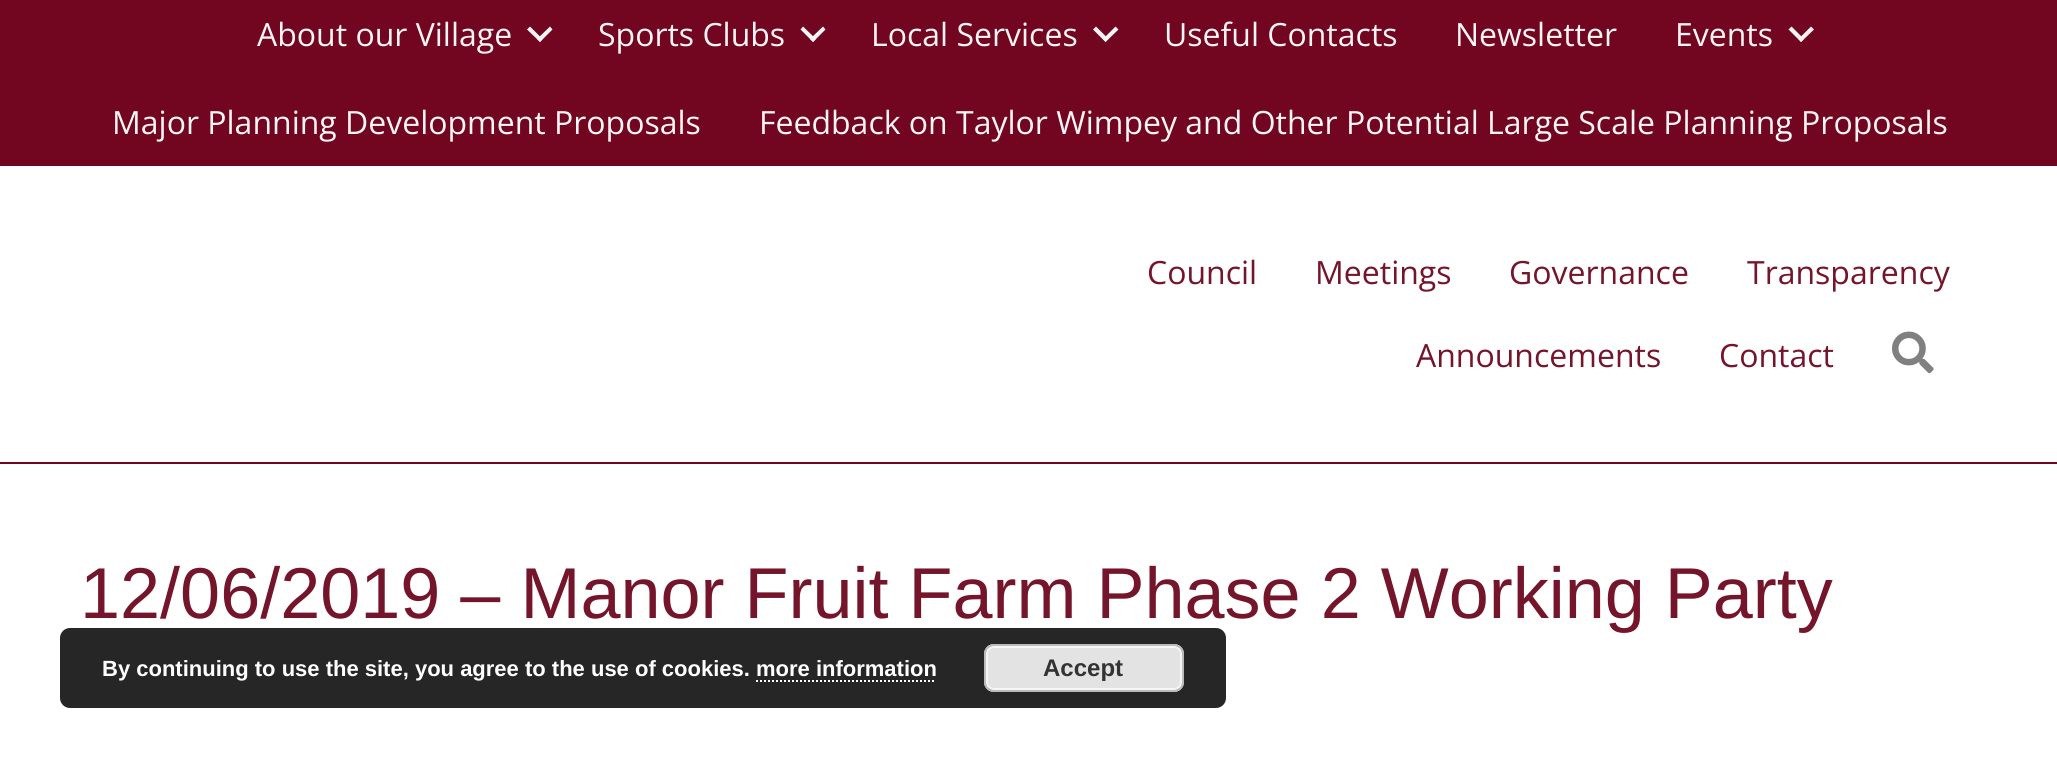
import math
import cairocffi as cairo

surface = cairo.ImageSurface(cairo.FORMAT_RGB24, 2057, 767)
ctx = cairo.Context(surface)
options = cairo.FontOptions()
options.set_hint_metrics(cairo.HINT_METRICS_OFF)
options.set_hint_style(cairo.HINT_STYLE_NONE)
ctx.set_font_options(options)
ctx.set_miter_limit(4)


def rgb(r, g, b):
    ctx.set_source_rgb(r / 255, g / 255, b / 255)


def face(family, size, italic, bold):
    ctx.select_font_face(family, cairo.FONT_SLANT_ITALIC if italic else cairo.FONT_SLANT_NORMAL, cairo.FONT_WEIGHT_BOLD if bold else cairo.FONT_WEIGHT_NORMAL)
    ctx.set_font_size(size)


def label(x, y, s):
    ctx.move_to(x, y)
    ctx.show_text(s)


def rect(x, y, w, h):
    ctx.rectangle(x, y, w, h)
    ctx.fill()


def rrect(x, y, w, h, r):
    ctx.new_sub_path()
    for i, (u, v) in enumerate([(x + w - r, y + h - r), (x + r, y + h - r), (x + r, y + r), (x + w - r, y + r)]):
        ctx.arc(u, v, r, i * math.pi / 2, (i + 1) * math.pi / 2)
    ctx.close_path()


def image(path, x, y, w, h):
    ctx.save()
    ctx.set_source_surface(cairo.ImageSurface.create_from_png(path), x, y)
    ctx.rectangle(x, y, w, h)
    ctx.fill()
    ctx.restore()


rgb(255, 255, 255)
ctx.paint()
rgb(114, 5, 31)
rect(0, 0, 2057, 166)
face('Open Sans', 32, 0, 0)
rgb(245, 245, 245)
label(257, 46, 'About our Village')
ctx.new_path()
ctx.move_to(550, 26.5)
ctx.line_to(552.5, 29.5)
ctx.line_to(540, 42)
ctx.line_to(537, 39)
ctx.close_path()
ctx.fill()
ctx.new_path()
ctx.move_to(530, 26.5)
ctx.line_to(542.5, 39)
ctx.line_to(540, 42)
ctx.line_to(527, 29.5)
ctx.close_path()
ctx.fill()
label(598, 46, 'Sports Clubs')
ctx.new_path()
ctx.move_to(823, 26.5)
ctx.line_to(825.5, 29.5)
ctx.line_to(813, 42)
ctx.line_to(810, 39)
ctx.close_path()
ctx.fill()
ctx.new_path()
ctx.move_to(803, 26.5)
ctx.line_to(816, 39)
ctx.line_to(813, 42)
ctx.line_to(800.5, 29.5)
ctx.close_path()
ctx.fill()
label(871, 46, 'Local Services')
ctx.new_path()
ctx.move_to(1115.5, 26.5)
ctx.line_to(1118.5, 29.5)
ctx.line_to(1105.5, 42)
ctx.line_to(1103, 39)
ctx.close_path()
ctx.fill()
ctx.new_path()
ctx.move_to(1096, 26.5)
ctx.line_to(1108.5, 39)
ctx.line_to(1105.5, 42)
ctx.line_to(1093, 29.5)
ctx.close_path()
ctx.fill()
label(1164, 46, 'Useful Contacts')
label(1455, 46, 'Newsletter')
label(1675, 46, 'Events')
ctx.new_path()
ctx.move_to(1811, 26.5)
ctx.line_to(1814, 29.5)
ctx.line_to(1801, 42)
ctx.line_to(1798.5, 39)
ctx.close_path()
ctx.fill()
ctx.new_path()
ctx.move_to(1791.5, 26.5)
ctx.line_to(1804, 39)
ctx.line_to(1801, 42)
ctx.line_to(1788.5, 29.5)
ctx.close_path()
ctx.fill()
label(112, 134, 'Major Planning Development Proposals')
label(759, 134, 'Feedback on Taylor Wimpey and Other Potential Large Scale Planning Proposals')
rgb(114, 5, 31)
rect(0, 462, 2057, 2)
rgb(116, 21, 43)
label(1147, 284, 'Council')
label(1315, 284, 'Meetings')
label(1509, 284, 'Governance')
label(1747, 284, 'Transparency')
label(1416, 367, 'Announcements')
label(1719, 367, 'Contact')
image('image0.png', 1892, 331, 42, 43)
face('Liberation Sans', 72, 0, 0)
label(80, 618, '12/06/2019 – Manor Fruit Farm Phase 2 Working Party')
ctx.set_source_rgba(0, 0, 0, 0.85)
rrect(60, 628, 1166, 80, 10)
ctx.fill()
face('Liberation Sans', 22, 0, 1)
rgb(255, 255, 255)
label(102, 676, 'By continuing to use the site, you agree to the use of cookies. more information')
rgb(227, 227, 227)
rrect(984, 644, 200, 48, 10)
ctx.fill()
rrect(987, 647, 194, 42, 7)
rgb(246, 246, 246)
ctx.stroke()
rrect(985, 645, 198, 46, 9)
rgb(187, 187, 187)
ctx.stroke()
face('Liberation Sans', 24, 0, 1)
rgb(51, 51, 51)
label(1043, 676, 'Accept')
ctx.new_path()
ctx.move_to(756, 681)
ctx.line_to(936, 681)
rgb(255, 255, 255)
ctx.set_dash([2, 2])
ctx.stroke()
surface.write_to_png('render.png')
